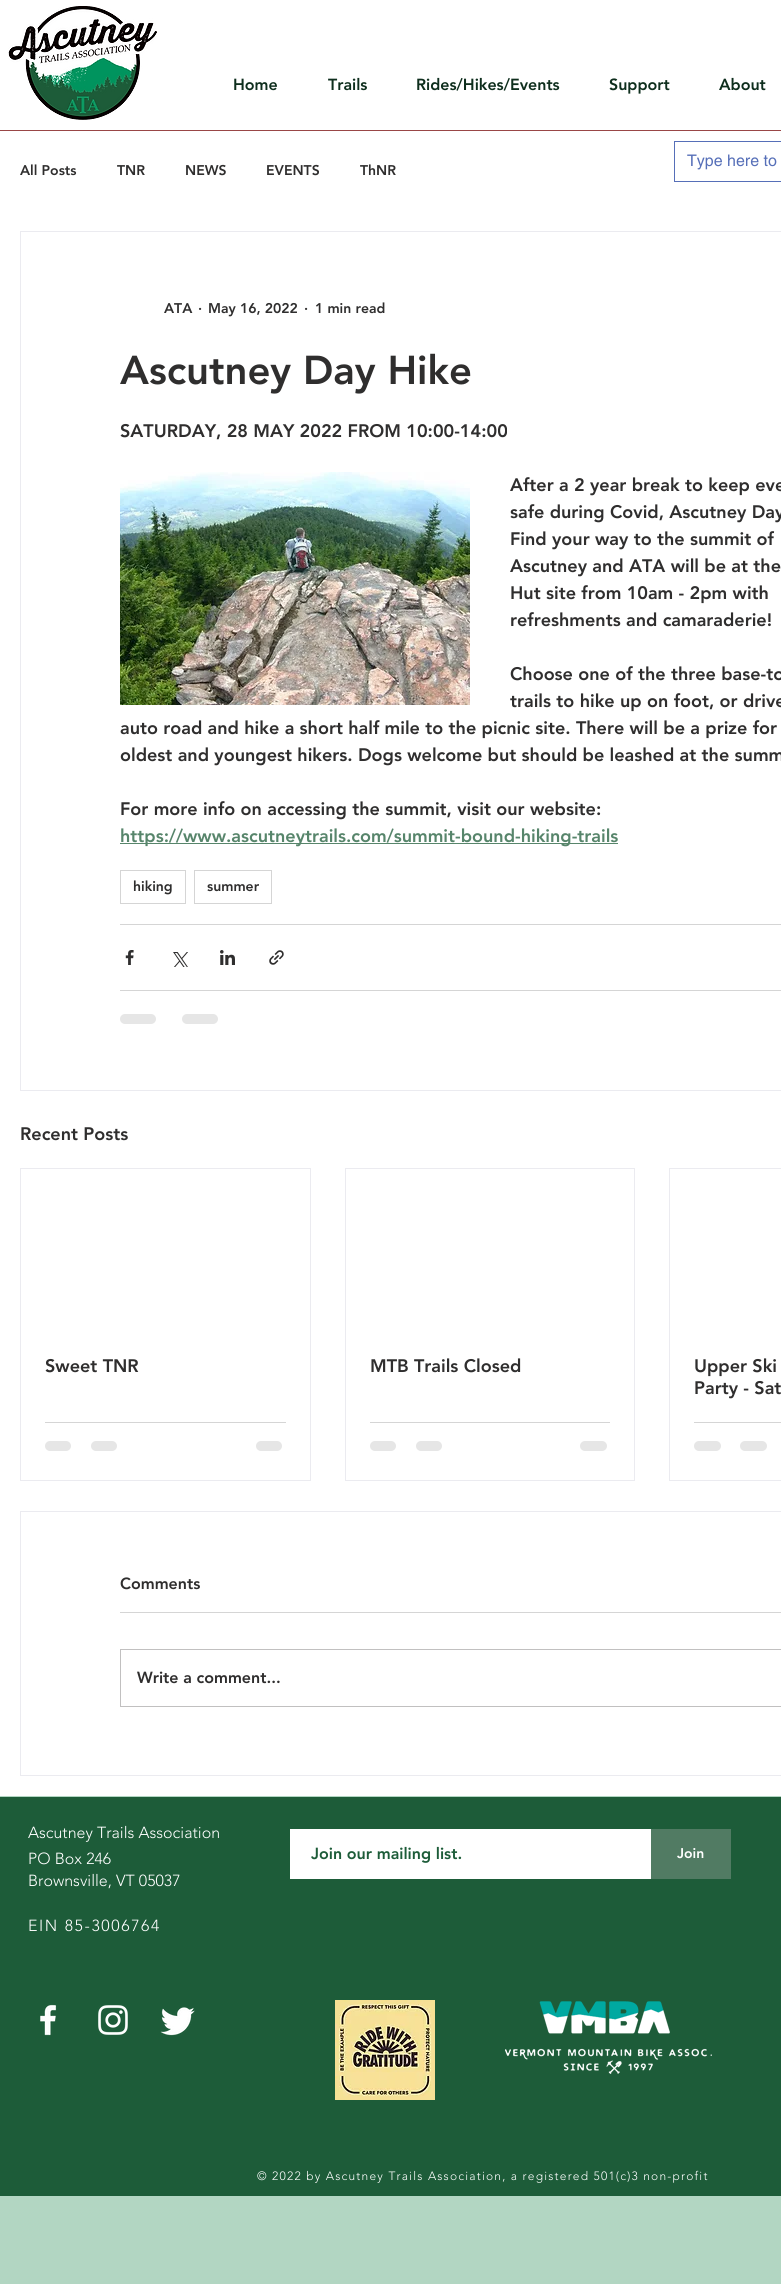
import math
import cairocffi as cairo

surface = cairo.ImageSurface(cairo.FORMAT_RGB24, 781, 2284)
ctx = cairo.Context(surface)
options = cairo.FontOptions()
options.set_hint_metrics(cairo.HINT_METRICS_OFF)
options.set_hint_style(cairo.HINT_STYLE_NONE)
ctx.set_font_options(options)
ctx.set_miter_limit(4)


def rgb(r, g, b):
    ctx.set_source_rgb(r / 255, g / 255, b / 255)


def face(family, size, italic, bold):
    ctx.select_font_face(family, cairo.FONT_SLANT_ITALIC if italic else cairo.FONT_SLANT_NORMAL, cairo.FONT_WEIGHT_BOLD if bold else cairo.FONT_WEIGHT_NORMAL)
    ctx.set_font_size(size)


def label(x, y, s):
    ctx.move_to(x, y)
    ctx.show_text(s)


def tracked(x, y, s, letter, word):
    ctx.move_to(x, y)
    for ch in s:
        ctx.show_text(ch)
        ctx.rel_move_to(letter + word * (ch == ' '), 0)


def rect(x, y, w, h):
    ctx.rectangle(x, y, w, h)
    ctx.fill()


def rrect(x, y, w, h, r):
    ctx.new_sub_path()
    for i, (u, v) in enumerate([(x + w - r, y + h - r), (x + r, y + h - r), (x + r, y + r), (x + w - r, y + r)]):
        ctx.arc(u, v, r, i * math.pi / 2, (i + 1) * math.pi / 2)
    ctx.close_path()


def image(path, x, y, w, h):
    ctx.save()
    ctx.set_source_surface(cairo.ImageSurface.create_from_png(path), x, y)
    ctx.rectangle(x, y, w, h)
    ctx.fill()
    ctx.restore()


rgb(178, 214, 194)
ctx.paint()
rgb(255, 255, 255)
rect(0, 0, 781, 130)
rgb(153, 70, 70)
rect(0, 130, 781, 1)
image('image0.png', 8, 6, 149, 114)
face('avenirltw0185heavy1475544 Black', 16, 0, 0)
rgb(14, 46, 29)
label(233, 90, 'Home')
label(328, 90, 'Trails')
label(416, 90, 'Rides/Hikes/Events')
label(609, 90, 'Support')
label(719, 90, 'About')
rgb(255, 255, 255)
rect(0, 131, 781, 1665)
ctx.rectangle(674.5, 141.5, 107, 40)
rgb(86, 111, 184)
ctx.set_line_width(1)
ctx.stroke()
face('helvetica', 16, 0, 0)
label(687, 166, 'Type here to')
face('avenirltw0185heavy1475544 Black', 14, 0, 0)
rgb(47, 46, 46)
label(20, 175, 'All Posts')
label(117, 175, 'TNR')
label(185, 175, 'NEWS')
label(266, 175, 'EVENTS')
label(360, 175, 'ThNR')
ctx.rectangle(20.5, 231.5, 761, 859)
rgb(235, 235, 240)
ctx.stroke()
rgb(47, 46, 46)
label(164, 313, 'ATA')
label(198, 313, '·')
label(208, 313, 'May 16, 2022')
label(304, 313, '·')
label(315, 313, '1 min read')
face('avenirltw0185heavy1475544 Black', 40, 0, 0)
label(120, 384, 'Ascutney Day Hike')
face('avenirltw0185heavy1475544 Black', 18, 0, 0)
label(120, 437, 'SATURDAY, 28 MAY 2022 FROM 10:00-14:00')
image('image1.png', 120, 472, 350, 233)
label(510, 491, 'After a 2 year break to keep eve')
label(510, 518, 'safe during Covid, Ascutney Day')
label(510, 545, 'Find your way to the summit of')
label(510, 572, 'Ascutney and ATA will be at the')
label(510, 599, 'Hut site from 10am - 2pm with')
label(510, 626, 'refreshments and camaraderie!')
label(510, 680, 'Choose one of the three base-to')
label(510, 707, 'trails to hike up on foot, or drive')
label(120, 734, 'auto road and hike a short half mile to the picnic site. There will be a prize for')
label(120, 761, 'oldest and youngest hikers. Dogs welcome but should be leashed at the summ')
label(120, 815, 'For more info on accessing the summit, visit our website:')
rgb(87, 133, 107)
rect(120, 843, 498, 1)
label(120, 842, 'https://www.ascutneytrails.com/summit-bound-hiking-trails')
ctx.rectangle(120.5, 870.5, 65, 33)
rgb(213, 213, 213)
ctx.stroke()
face('avenirltw0185heavy1475544 Black', 14, 0, 0)
rgb(47, 46, 46)
label(133, 891, 'hiking')
ctx.rectangle(194.5, 870.5, 77, 33)
rgb(213, 213, 213)
ctx.stroke()
rgb(47, 46, 46)
label(207, 891, 'summer')
rgb(213, 213, 213)
rect(120, 924, 661, 1)
image('image2.png', 125, 950, 9, 15)
image('image3.png', 173, 952, 15, 15)
image('image4.png', 220, 950, 15, 15)
image('image5.png', 269, 950, 15, 15)
rect(120, 990, 661, 1)
rgb(230, 230, 230)
rrect(120, 1014, 36, 10, 5)
ctx.fill()
rrect(182, 1014, 36, 10, 5)
ctx.fill()
face('avenirltw0185heavy1475544 Black', 18, 0, 0)
rgb(47, 46, 46)
label(20, 1140, 'Recent Posts')
ctx.rectangle(20.5, 1168.5, 290, 312)
rgb(235, 235, 240)
ctx.stroke()
rgb(47, 46, 46)
label(45, 1372, 'Sweet TNR')
rgb(213, 213, 213)
rect(45, 1422, 241, 1)
rgb(230, 230, 230)
rrect(45, 1441, 26, 10, 5)
ctx.fill()
rrect(91, 1441, 26, 10, 5)
ctx.fill()
rrect(256, 1441, 26, 10, 5)
ctx.fill()
ctx.rectangle(345.5, 1168.5, 289, 312)
rgb(235, 235, 240)
ctx.stroke()
rgb(47, 46, 46)
label(370, 1372, 'MTB Trails Closed')
rgb(213, 213, 213)
rect(370, 1422, 240, 1)
rgb(230, 230, 230)
rrect(370, 1441, 26, 10, 5)
ctx.fill()
rrect(416, 1441, 26, 10, 5)
ctx.fill()
rrect(580, 1441, 27, 10, 5)
ctx.fill()
ctx.rectangle(669.5, 1168.5, 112, 312)
rgb(235, 235, 240)
ctx.stroke()
rgb(47, 46, 46)
label(694, 1372, 'Upper Ski')
label(694, 1394, 'Party - Sat')
rgb(213, 213, 213)
rect(694, 1422, 87, 1)
rgb(230, 230, 230)
rrect(694, 1441, 27, 10, 5)
ctx.fill()
rrect(740, 1441, 27, 10, 5)
ctx.fill()
ctx.rectangle(20.5, 1511.5, 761, 264)
rgb(235, 235, 240)
ctx.stroke()
face('avenirltw0185heavy1475544 Black', 16, 0, 0)
rgb(47, 46, 46)
label(120, 1589, 'Comments')
rgb(213, 213, 213)
rect(120, 1612, 661, 1)
ctx.rectangle(120.5, 1649.5, 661, 57)
rgb(193, 192, 192)
ctx.stroke()
rgb(47, 46, 46)
label(137, 1683, 'Write a comment...')
rgb(29, 92, 57)
rect(0, 1797, 781, 399)
face('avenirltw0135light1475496 Light', 16, 0, 0)
rgb(255, 255, 255)
label(28, 1838, 'Ascutney Trails Association')
label(28, 1864, 'PO Box 246')
label(28, 1886, 'Brownsville, VT 05037')
tracked(28, 1931, 'EIN 85-3006764', 1.6, 0)
rect(290, 1829, 361, 50)
face('avenirltw0185heavy1475544 Black', 16, 0, 0)
rgb(29, 92, 57)
label(311, 1859, 'Join our mailing list.')
rgb(81, 123, 99)
rect(651, 1829, 80, 50)
face('avenirltw0185heavy1475544 Black', 14, 0, 0)
rgb(255, 255, 255)
label(677, 1858, 'Join')
image('image6.png', 40, 2004, 17, 32)
image('image7.png', 98, 2005, 30, 30)
image('image8.png', 160, 2007, 35, 29)
image('image9.png', 335, 2000, 100, 100)
image('image10.png', 505, 2001, 207, 73)
face('avenirltw0135light1475496 Light', 12, 0, 0)
tracked(257, 2180, '© 2022 by Ascutney Trails Association, a registered 501(c)3 non-profit', 1.2, 0)
surface.write_to_png('render.png')
